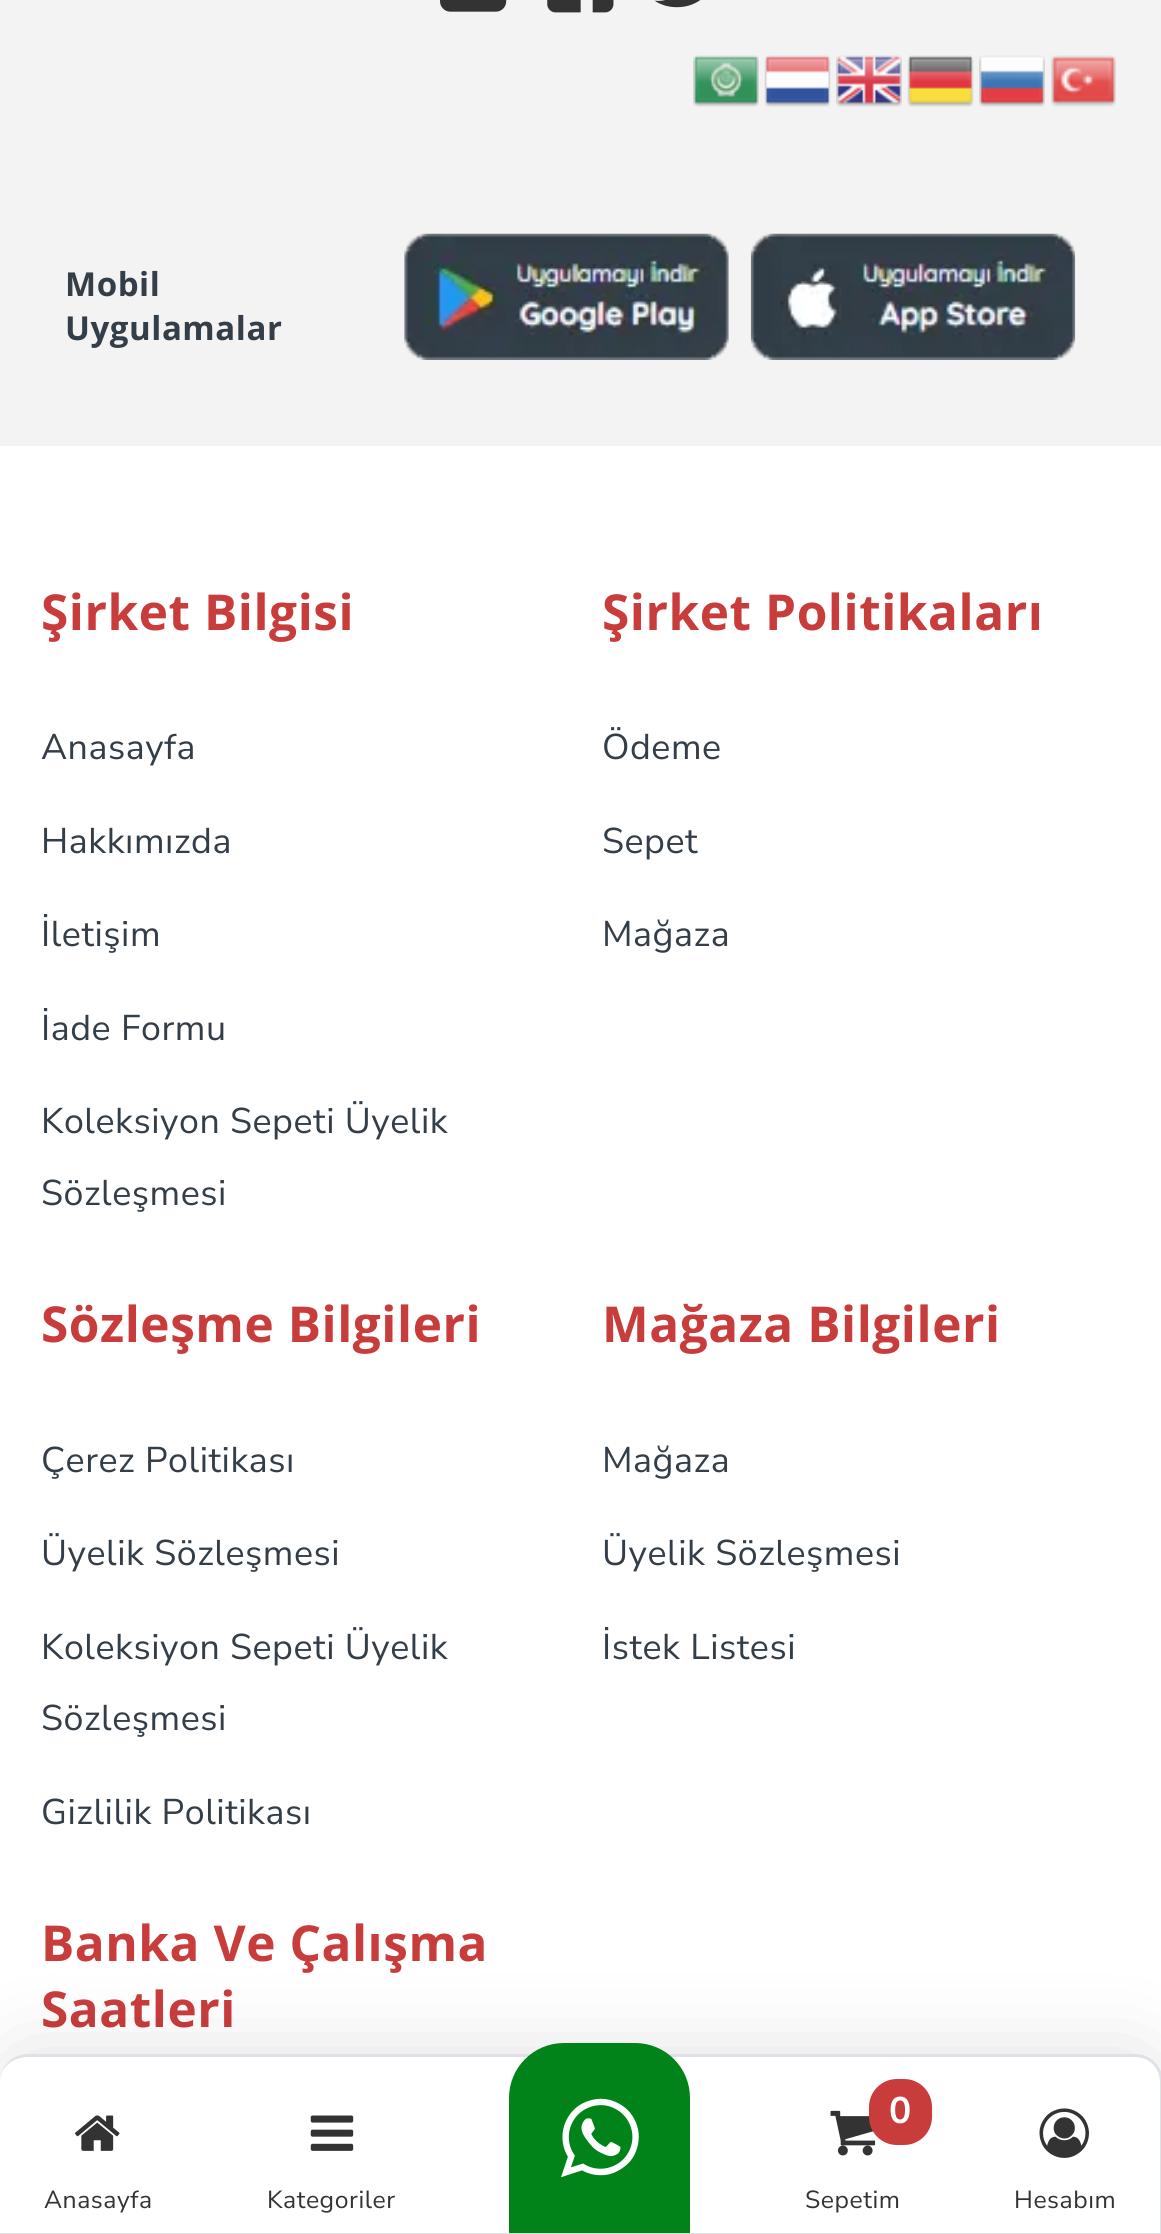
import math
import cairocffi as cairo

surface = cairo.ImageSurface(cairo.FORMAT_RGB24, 1161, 2234)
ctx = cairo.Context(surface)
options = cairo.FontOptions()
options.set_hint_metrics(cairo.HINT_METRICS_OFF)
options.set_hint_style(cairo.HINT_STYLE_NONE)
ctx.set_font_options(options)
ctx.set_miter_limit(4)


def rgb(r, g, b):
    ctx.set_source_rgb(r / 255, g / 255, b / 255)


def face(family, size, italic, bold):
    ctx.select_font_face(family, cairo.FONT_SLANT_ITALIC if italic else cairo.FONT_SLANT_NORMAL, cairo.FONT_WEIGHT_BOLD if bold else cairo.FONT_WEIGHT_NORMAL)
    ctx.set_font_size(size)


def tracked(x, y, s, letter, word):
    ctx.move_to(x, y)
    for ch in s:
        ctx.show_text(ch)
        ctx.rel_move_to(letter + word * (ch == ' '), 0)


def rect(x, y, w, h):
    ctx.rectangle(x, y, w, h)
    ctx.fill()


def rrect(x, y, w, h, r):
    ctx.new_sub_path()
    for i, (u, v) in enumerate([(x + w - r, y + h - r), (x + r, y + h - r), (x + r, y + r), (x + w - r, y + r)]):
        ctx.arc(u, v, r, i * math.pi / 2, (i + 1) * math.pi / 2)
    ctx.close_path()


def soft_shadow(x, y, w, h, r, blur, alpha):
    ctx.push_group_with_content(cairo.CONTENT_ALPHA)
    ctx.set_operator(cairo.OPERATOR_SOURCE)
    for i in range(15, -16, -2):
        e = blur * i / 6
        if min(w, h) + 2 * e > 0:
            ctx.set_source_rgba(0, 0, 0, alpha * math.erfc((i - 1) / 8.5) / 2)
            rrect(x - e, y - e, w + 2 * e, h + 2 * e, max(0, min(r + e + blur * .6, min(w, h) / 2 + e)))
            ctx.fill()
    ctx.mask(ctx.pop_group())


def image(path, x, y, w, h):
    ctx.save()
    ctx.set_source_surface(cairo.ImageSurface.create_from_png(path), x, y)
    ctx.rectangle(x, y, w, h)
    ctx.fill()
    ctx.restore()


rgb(255, 255, 255)
ctx.paint()
rgb(243, 243, 243)
rect(0, 0, 1161, 446)
image('image0.png', 693, 55, 66, 52)
image('image1.png', 764, 55, 67, 52)
image('image2.png', 836, 55, 66, 52)
image('image3.png', 907, 55, 67, 52)
image('image4.png', 979, 55, 66, 52)
image('image5.png', 1051, 55, 65, 52)
image('image6.png', 440, 0, 67, 12)
image('image7.png', 547, 0, 67, 13)
image('image8.png', 654, 0, 47, 8)
face('Open Sans', 33, 0, 1)
rgb(51, 62, 72)
tracked(65, 296, 'Mobil', 0.55, 0)
tracked(65, 340, 'Uygulamalar', 0.55, 0)
image('image9.png', 404, 233, 325, 127)
image('image10.png', 750, 233, 326, 127)
face('Open Sans', 49.5, 0, 1)
rgb(201, 60, 60)
tracked(41, 630, 'Şirket Bilgisi', 0.55, 0)
face('Nunito Sans', 35.75, 0, 0)
rgb(51, 62, 72)
tracked(41, 759, 'Anasayfa', 0.55, 0)
tracked(41, 853, 'Hakkımızda', 0.55, 0)
tracked(41, 946, 'İletişim', 0.55, 0)
tracked(41, 1040, 'İade Formu', 0.55, 0)
tracked(41, 1133, 'Koleksiyon Sepeti Üyelik', 0.55, 0)
tracked(41, 1205, 'Sözleşmesi', 0.55, 0)
face('Open Sans', 49.5, 0, 1)
rgb(201, 60, 60)
tracked(602, 630, 'Şirket Politikaları', 0.55, 0)
face('Nunito Sans', 35.75, 0, 0)
rgb(51, 62, 72)
tracked(602, 759, 'Ödeme', 0.55, 0)
tracked(602, 853, 'Sepet', 0.55, 0)
tracked(602, 946, 'Mağaza', 0.55, 0)
face('Open Sans', 49.5, 0, 1)
rgb(201, 60, 60)
tracked(41, 1342, 'Sözleşme Bilgileri', 0.55, 0)
face('Nunito Sans', 35.75, 0, 0)
rgb(51, 62, 72)
tracked(41, 1472, 'Çerez Politikası', 0.55, 0)
tracked(41, 1565, 'Üyelik Sözleşmesi', 0.55, 0)
tracked(41, 1659, 'Koleksiyon Sepeti Üyelik', 0.55, 0)
tracked(41, 1730, 'Sözleşmesi', 0.55, 0)
tracked(41, 1824, 'Gizlilik Politikası', 0.55, 0)
face('Open Sans', 49.5, 0, 1)
rgb(201, 60, 60)
tracked(602, 1342, 'Mağaza Bilgileri', 0.55, 0)
face('Nunito Sans', 35.75, 0, 0)
rgb(51, 62, 72)
tracked(602, 1472, 'Mağaza', 0.55, 0)
tracked(602, 1565, 'Üyelik Sözleşmesi', 0.55, 0)
tracked(602, 1659, 'İstek Listesi', 0.55, 0)
face('Open Sans', 49.5, 0, 1)
rgb(201, 60, 60)
tracked(41, 1961, 'Banka Ve Çalışma', 0.55, 0)
tracked(41, 2027, 'Saatleri', 0.55, 0)
rgb(0, 0, 0)
soft_shadow(0, 2054, 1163, 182, 28, 44, 0.12)
rgb(255, 255, 255)
ctx.new_path()
ctx.move_to(28, 2057)
ctx.line_to(1136, 2057)
ctx.curve_to(1149, 2057, 1160, 2068, 1160, 2082)
ctx.line_to(1160, 2233)
ctx.line_to(0, 2233)
ctx.line_to(0, 2082)
ctx.curve_to(0, 2068, 12, 2057, 28, 2057)
ctx.close_path()
ctx.fill()
rgb(222, 226, 230)
ctx.set_fill_rule(cairo.FILL_RULE_EVEN_ODD)
ctx.new_path()
ctx.move_to(28, 2054)
ctx.line_to(1136, 2054)
ctx.curve_to(1151, 2054, 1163, 2067, 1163, 2082)
ctx.line_to(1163, 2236)
ctx.line_to(0, 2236)
ctx.line_to(0, 2082)
ctx.curve_to(0, 2067, 12, 2054, 28, 2054)
ctx.close_path()
ctx.move_to(28, 2057)
ctx.line_to(1136, 2057)
ctx.curve_to(1149, 2057, 1160, 2068, 1160, 2082)
ctx.line_to(1160, 2233)
ctx.line_to(0, 2233)
ctx.line_to(0, 2082)
ctx.curve_to(0, 2068, 12, 2057, 28, 2057)
ctx.close_path()
ctx.fill()
image('image11.png', 75, 2115, 45, 36)
face('Nunito Sans', 24.75, 0, 0)
rgb(51, 51, 51)
tracked(44, 2208, 'Anasayfa', 0.55, 0)
image('image12.png', 310, 2115, 44, 36)
tracked(267, 2208, 'Kategoriler', 0.55, 0)
rgb(1, 131, 25)
ctx.new_path()
ctx.move_to(564, 2043)
ctx.line_to(635, 2043)
ctx.curve_to(665.5, 2043, 690, 2067.5, 690, 2098)
ctx.line_to(690, 2233)
ctx.line_to(509, 2233)
ctx.line_to(509, 2098)
ctx.curve_to(509, 2067.5, 533.5, 2043, 564, 2043)
ctx.close_path()
ctx.fill()
image('image13.png', 561, 2098, 78, 80)
image('image14.png', 830, 2110, 46, 46)
rgb(201, 60, 60)
rrect(869, 2079, 63, 66, 28)
ctx.fill()
face('Nunito Sans', 37, 0, 1)
rgb(255, 255, 255)
tracked(889, 2123, '0', 0.55, 0)
face('Nunito Sans', 24.75, 0, 0)
rgb(51, 51, 51)
tracked(805, 2208, 'Sepetim', 0.55, 0)
image('image15.png', 1039, 2108, 50, 50)
tracked(1014, 2208, 'Hesabım', 0.55, 0)
surface.write_to_png('render.png')
